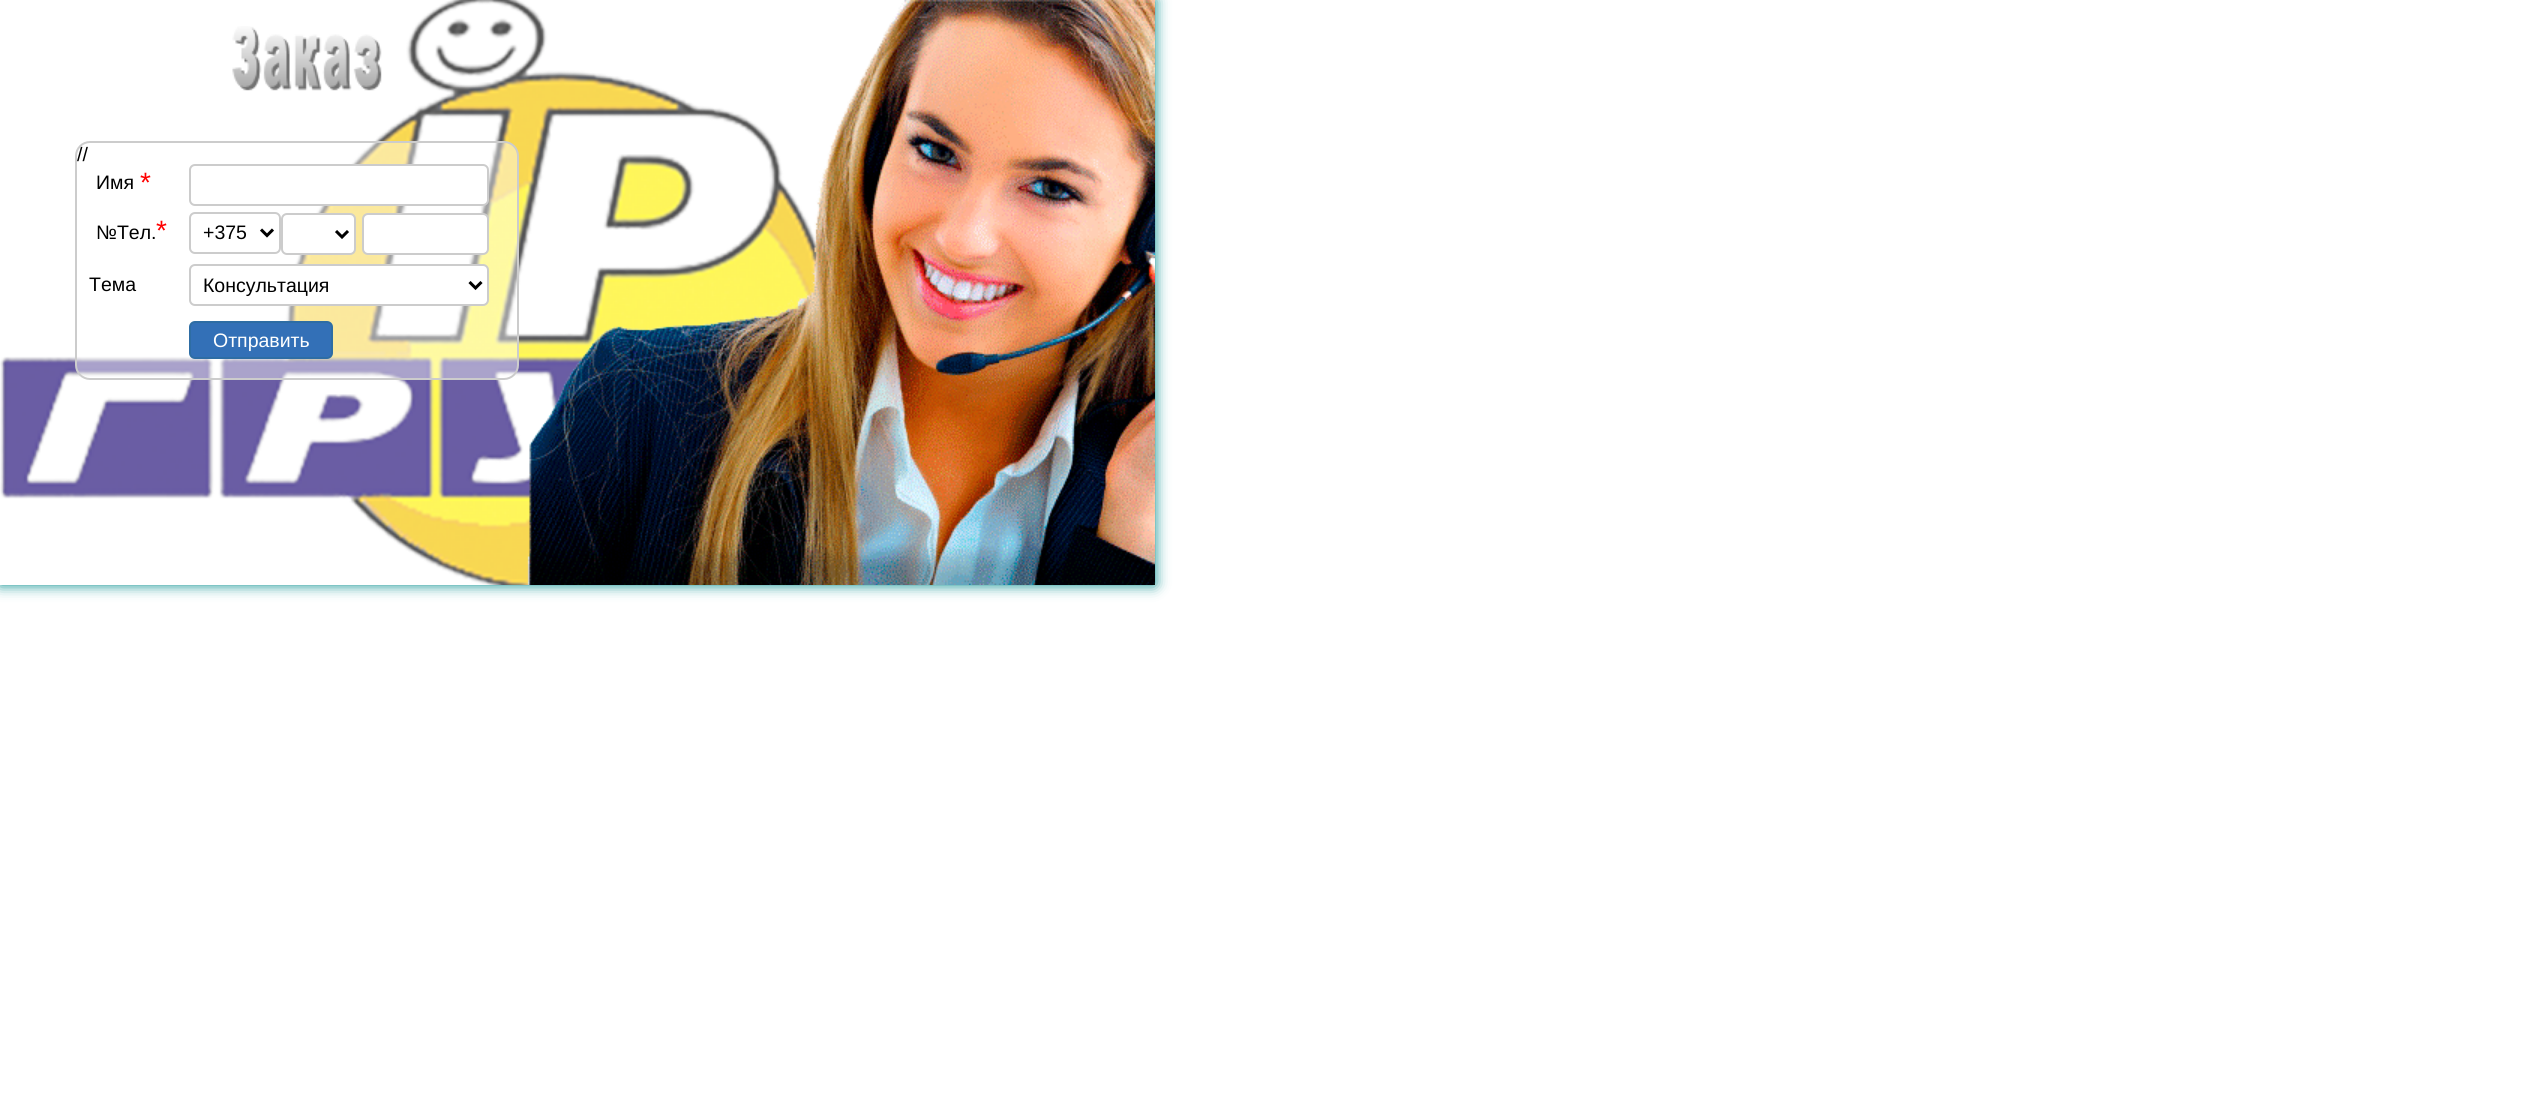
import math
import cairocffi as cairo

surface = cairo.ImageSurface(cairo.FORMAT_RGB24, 2523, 1107)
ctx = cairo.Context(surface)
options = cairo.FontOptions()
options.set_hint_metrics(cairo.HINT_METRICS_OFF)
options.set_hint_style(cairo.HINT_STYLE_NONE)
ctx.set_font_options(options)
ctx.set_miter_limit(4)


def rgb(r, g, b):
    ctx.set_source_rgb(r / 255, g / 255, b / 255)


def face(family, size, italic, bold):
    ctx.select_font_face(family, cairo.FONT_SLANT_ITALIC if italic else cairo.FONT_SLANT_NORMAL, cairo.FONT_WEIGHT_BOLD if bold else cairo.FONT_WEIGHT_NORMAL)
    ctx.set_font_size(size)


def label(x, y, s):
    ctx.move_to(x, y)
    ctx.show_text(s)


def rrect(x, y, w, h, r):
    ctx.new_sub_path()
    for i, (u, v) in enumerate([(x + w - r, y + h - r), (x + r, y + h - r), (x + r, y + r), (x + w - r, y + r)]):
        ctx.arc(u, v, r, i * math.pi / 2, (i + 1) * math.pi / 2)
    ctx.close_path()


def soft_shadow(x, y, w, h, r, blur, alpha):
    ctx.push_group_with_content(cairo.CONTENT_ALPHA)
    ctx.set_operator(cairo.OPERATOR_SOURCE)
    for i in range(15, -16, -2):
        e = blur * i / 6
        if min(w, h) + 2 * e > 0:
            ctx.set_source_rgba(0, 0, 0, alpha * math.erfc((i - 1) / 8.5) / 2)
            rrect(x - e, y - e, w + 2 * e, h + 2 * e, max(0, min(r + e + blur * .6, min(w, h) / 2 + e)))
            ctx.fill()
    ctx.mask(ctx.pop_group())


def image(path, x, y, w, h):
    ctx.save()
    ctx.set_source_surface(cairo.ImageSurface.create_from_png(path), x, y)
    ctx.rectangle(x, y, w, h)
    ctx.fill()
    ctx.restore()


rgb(255, 255, 255)
ctx.paint()
ctx.save()
ctx.set_fill_rule(cairo.FILL_RULE_EVEN_ODD)
ctx.new_path()
ctx.move_to(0, 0)
ctx.line_to(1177, 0)
ctx.line_to(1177, 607)
ctx.line_to(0, 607)
ctx.close_path()
ctx.move_to(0, 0)
ctx.line_to(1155, 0)
ctx.line_to(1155, 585)
ctx.line_to(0, 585)
ctx.close_path()
ctx.clip()
rgb(0, 139, 139)
soft_shadow(0, 0, 1155, 585, 0, 7, 1)
ctx.restore()
image('image0.png', 0, 0, 1155, 585)
image('image1.png', 232, 26, 150, 65)
ctx.set_source_rgba(1, 1, 1, 0.43)
rrect(76, 142, 442, 237, 14)
ctx.fill_preserve()
rgb(204, 204, 204)
ctx.stroke()
face('Liberation Sans', 19.5, 0, 0)
rgb(0, 0, 0)
label(77, 161, '//')
label(96, 189, 'Имя')
face('Liberation Sans', 28, 0, 0)
rgb(255, 0, 0)
label(140, 192, '*')
rgb(255, 255, 255)
rrect(190, 165, 298, 40, 5)
ctx.fill_preserve()
rgb(204, 204, 204)
ctx.stroke()
face('Liberation Sans', 19.5, 0, 0)
rgb(0, 0, 0)
label(96, 239, '№Тел.')
face('Liberation Sans', 28, 0, 0)
rgb(255, 0, 0)
label(156, 240, '*')
rrect(190, 213, 90, 40, 5)
rgb(204, 204, 204)
ctx.stroke()
ctx.new_path()
ctx.move_to(261, 229.5)
ctx.line_to(267, 235.5)
ctx.line_to(273, 229.5)
rgb(0, 0, 0)
ctx.set_line_width(3)
ctx.stroke()
face('Liberation Sans', 19.5, 0, 0)
label(203, 239, '+375')
rgb(255, 255, 255)
rrect(282, 214, 73, 40, 5)
ctx.fill_preserve()
rgb(204, 204, 204)
ctx.set_line_width(2)
ctx.stroke()
ctx.new_path()
ctx.move_to(336, 231)
ctx.line_to(342, 237)
ctx.line_to(348, 231)
rgb(0, 0, 0)
ctx.set_line_width(3)
ctx.stroke()
rgb(255, 255, 255)
rrect(363, 214, 125, 40, 5)
ctx.fill_preserve()
rgb(204, 204, 204)
ctx.set_line_width(2)
ctx.stroke()
rgb(0, 0, 0)
label(89, 291, 'Тема')
rgb(255, 255, 255)
rrect(190, 265, 298, 40, 5)
ctx.fill_preserve()
rgb(204, 204, 204)
ctx.stroke()
ctx.new_path()
ctx.move_to(469.5, 282)
ctx.line_to(475.5, 288)
ctx.line_to(481.5, 282)
rgb(0, 0, 0)
ctx.set_line_width(3)
ctx.stroke()
label(203, 292, 'Консультация')
rgb(51, 112, 183)
rrect(190, 322, 142, 36, 5)
ctx.fill_preserve()
rgb(46, 109, 164)
ctx.set_line_width(2)
ctx.stroke()
rgb(255, 255, 255)
label(213, 347, 'Отправить')
surface.write_to_png('render.png')
